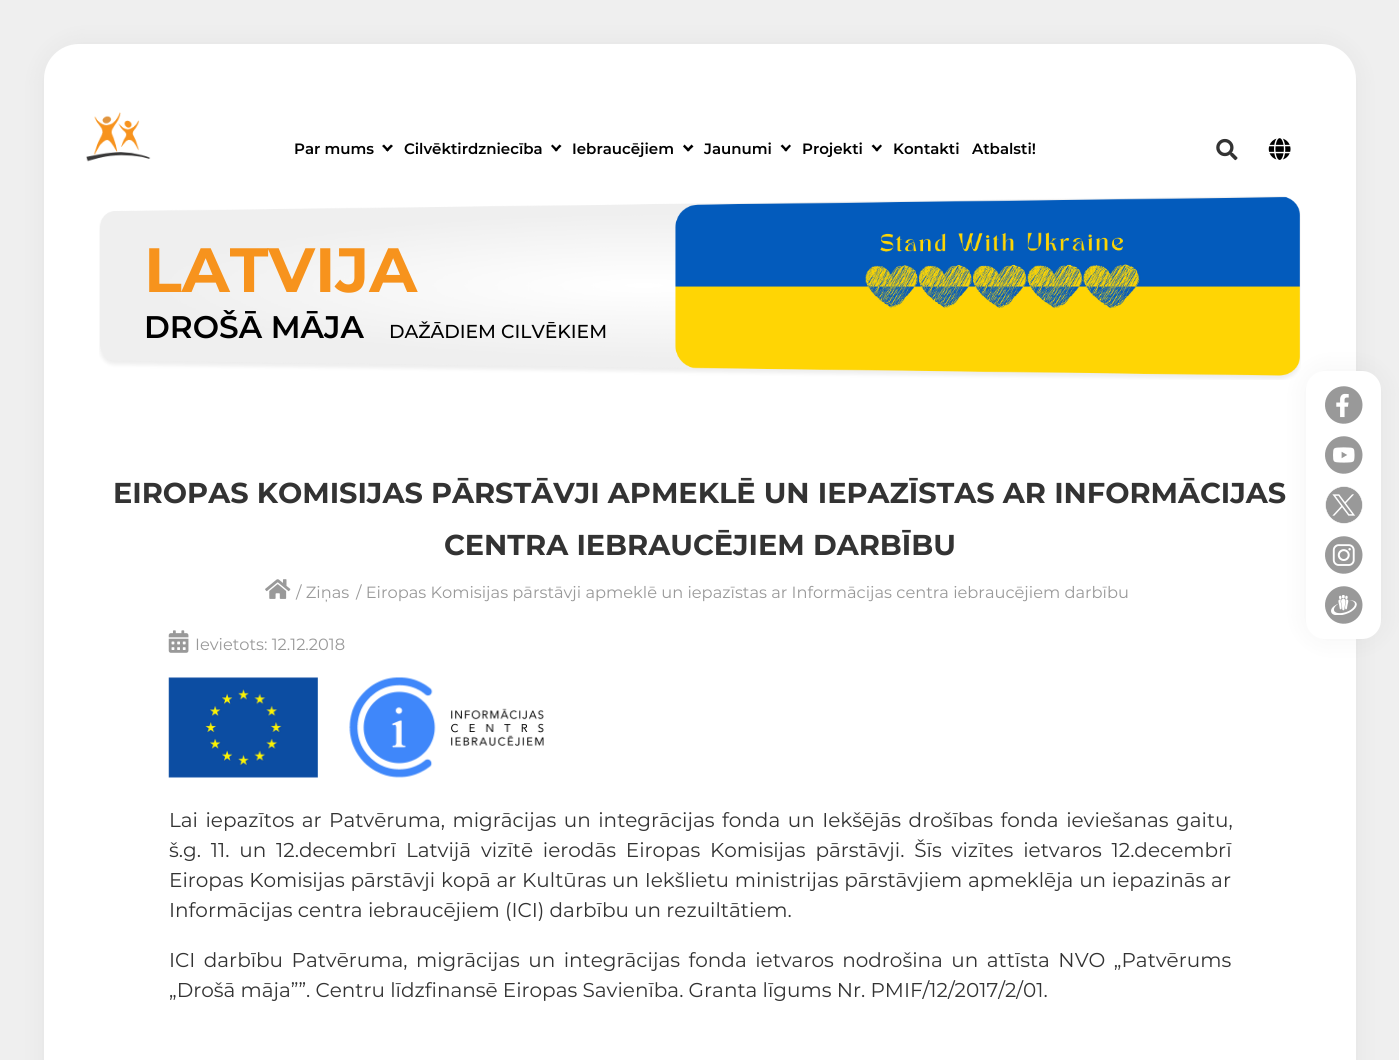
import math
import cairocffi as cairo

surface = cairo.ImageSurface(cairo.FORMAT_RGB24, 1399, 1060)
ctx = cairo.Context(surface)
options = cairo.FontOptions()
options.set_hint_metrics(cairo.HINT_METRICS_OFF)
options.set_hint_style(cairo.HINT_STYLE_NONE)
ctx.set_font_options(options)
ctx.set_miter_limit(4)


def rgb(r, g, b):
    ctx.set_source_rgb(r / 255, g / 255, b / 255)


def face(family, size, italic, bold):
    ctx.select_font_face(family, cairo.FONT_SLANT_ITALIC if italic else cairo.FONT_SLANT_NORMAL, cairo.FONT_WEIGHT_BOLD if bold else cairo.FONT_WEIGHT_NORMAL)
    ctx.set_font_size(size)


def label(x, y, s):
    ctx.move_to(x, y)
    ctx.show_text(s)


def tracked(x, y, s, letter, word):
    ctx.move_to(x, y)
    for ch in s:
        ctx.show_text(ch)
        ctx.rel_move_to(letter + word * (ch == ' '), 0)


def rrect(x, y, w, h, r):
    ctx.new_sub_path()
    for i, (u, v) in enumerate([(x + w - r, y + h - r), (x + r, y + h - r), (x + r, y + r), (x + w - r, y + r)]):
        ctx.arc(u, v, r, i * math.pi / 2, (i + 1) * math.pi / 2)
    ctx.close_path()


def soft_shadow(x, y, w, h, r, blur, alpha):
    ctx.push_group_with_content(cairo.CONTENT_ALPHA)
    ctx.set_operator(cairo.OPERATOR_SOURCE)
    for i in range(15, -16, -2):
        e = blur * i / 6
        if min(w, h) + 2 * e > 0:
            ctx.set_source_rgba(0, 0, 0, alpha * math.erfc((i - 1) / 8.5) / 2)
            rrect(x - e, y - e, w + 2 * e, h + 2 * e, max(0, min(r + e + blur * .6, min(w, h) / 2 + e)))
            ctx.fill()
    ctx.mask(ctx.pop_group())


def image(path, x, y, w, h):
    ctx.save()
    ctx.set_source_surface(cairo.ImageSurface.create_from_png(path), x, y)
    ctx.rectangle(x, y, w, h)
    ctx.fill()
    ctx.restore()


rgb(239, 239, 239)
ctx.paint()
rgb(0, 0, 0)
soft_shadow(44, 44, 1312, 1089, 35, 12.5, 0.05)
rgb(255, 255, 255)
rrect(44, 44, 1312, 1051, 35)
ctx.fill()
image('image0.png', 86, 112, 65, 50)
face('Montserrat SemiBold', 15, 0, 0)
rgb(0, 0, 0)
label(294, 154, 'Par mums')
ctx.new_path()
ctx.move_to(391, 144.5)
ctx.line_to(393, 146)
ctx.line_to(387.5, 151.5)
ctx.line_to(385.5, 150)
ctx.close_path()
ctx.fill()
ctx.new_path()
ctx.move_to(384, 144.5)
ctx.line_to(389, 150)
ctx.line_to(387.5, 151.5)
ctx.line_to(382, 146)
ctx.close_path()
ctx.fill()
label(404, 154, 'Cilvēktirdzniecība')
ctx.new_path()
ctx.move_to(559.5, 144.5)
ctx.line_to(561.5, 146)
ctx.line_to(556, 151.5)
ctx.line_to(554.5, 150)
ctx.close_path()
ctx.fill()
ctx.new_path()
ctx.move_to(552.5, 144.5)
ctx.line_to(558, 150)
ctx.line_to(556, 151.5)
ctx.line_to(551, 146)
ctx.close_path()
ctx.fill()
label(572, 154, 'Iebraucējiem')
ctx.new_path()
ctx.move_to(691.5, 144.5)
ctx.line_to(693.5, 146.5)
ctx.line_to(688, 151.5)
ctx.line_to(686.5, 150)
ctx.close_path()
ctx.fill()
ctx.new_path()
ctx.move_to(684.5, 144.5)
ctx.line_to(690, 150)
ctx.line_to(688, 151.5)
ctx.line_to(683, 146.5)
ctx.close_path()
ctx.fill()
label(704, 154, 'Jaunumi')
ctx.new_path()
ctx.move_to(789.5, 144.5)
ctx.line_to(791, 146)
ctx.line_to(786, 151.5)
ctx.line_to(784, 150)
ctx.close_path()
ctx.fill()
ctx.new_path()
ctx.move_to(782.5, 144.5)
ctx.line_to(787.5, 150)
ctx.line_to(786, 151.5)
ctx.line_to(780.5, 146)
ctx.close_path()
ctx.fill()
label(802, 154, 'Projekti')
ctx.new_path()
ctx.move_to(880.5, 144.5)
ctx.line_to(882, 146)
ctx.line_to(877, 151.5)
ctx.line_to(875, 150)
ctx.close_path()
ctx.fill()
ctx.new_path()
ctx.move_to(873.5, 144.5)
ctx.line_to(878.5, 150)
ctx.line_to(877, 151.5)
ctx.line_to(871.5, 146)
ctx.close_path()
ctx.fill()
label(893, 154, 'Kontakti')
label(972, 154, 'Atbalsti!')
image('image1.png', 1216, 138, 22, 23)
image('image2.png', 1268, 138, 23, 22)
image('image3.png', 99, 196, 1202, 184)
face('Montserrat', 62.5, 0, 1)
rgb(247, 147, 29)
label(144, 292, 'LATVIJA')
face('Montserrat SemiBold', 31.25, 0, 0)
rgb(0, 0, 0)
label(144, 338, 'DROŠĀ MĀJA')
face('Montserrat Medium', 18.75, 0, 0)
label(389, 338, 'DAŽĀDIEM CILVĒKIEM')
face('Montserrat', 28.75, 0, 1)
rgb(51, 51, 51)
label(113, 503, 'EIROPAS KOMISIJAS PĀRSTĀVJI APMEKLĒ UN IEPAZĪSTAS AR INFORMĀCIJAS')
label(444, 555, 'CENTRA IEBRAUCĒJIEM DARBĪBU')
image('image4.png', 265, 579, 26, 20)
face('Montserrat', 16.25, 0, 0)
rgb(153, 153, 153)
label(296, 598, '/ Ziņas')
label(356, 598, '/ Eiropas Komisijas pārstāvji apmeklē un iepazīstas ar Informācijas centra iebraucējiem darbību')
image('image5.png', 168, 630, 21, 23)
label(195, 650, 'Ievietots: 12.12.2018')
image('image6.png', 168, 677, 376, 101)
face('Montserrat', 20, 0, 0)
rgb(51, 51, 51)
tracked(169, 827, 'Lai iepazītos ar Patvēruma, migrācijas un integrācijas fonda un Iekšējās drošības fonda ieviešanas gaitu,', 0, 2.25)
tracked(169, 857, 'š.g. 11. un 12.decembrī Latvijā vizītē ierodās Eiropas Komisijas pārstāvji. Šīs vizītes ietvaros 12.decembrī', 0, 4.6)
tracked(169, 887, 'Eiropas Komisijas pārstāvji kopā ar Kultūras un Iekšlietu ministrijas pārstāvjiem apmeklēja un iepazinās ar', 0, 0.5)
label(169, 917, 'Informācijas centra iebraucējiem (ICI) darbību un rezuiltātiem.')
tracked(169, 967, 'ICI darbību Patvēruma, migrācijas un integrācijas fonda ietvaros nodrošina un attīsta NVO „Patvērums', 0, 3.25)
label(169, 997, '„Drošā māja””. Centru līdzfinansē Eiropas Savienība. Granta līgums Nr. PMIF/12/2017/2/01.')
rgb(0, 0, 0)
soft_shadow(1306, 371, 75, 268, 19, 12.5, 0.05)
rgb(255, 255, 255)
rrect(1306, 371, 75, 268, 19)
ctx.fill()
image('image7.png', 1325, 386, 38, 38)
image('image8.png', 1325, 436, 38, 38)
image('image9.png', 1325, 486, 38, 38)
image('image10.png', 1325, 536, 38, 38)
image('image11.png', 1325, 586, 38, 38)
surface.write_to_png('render.png')
